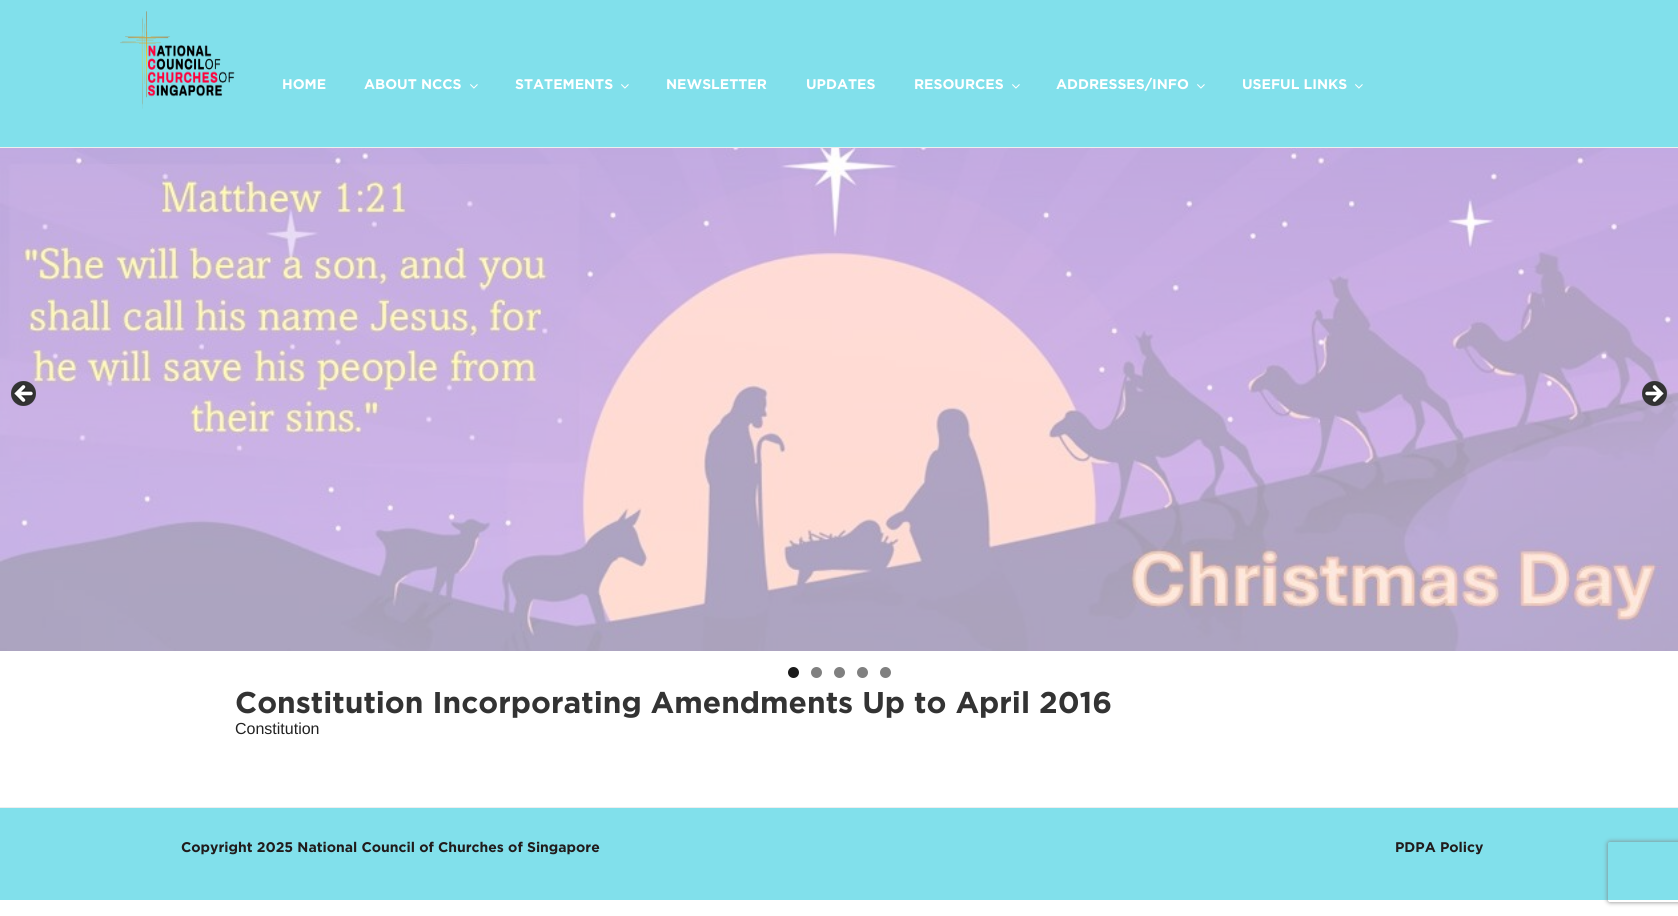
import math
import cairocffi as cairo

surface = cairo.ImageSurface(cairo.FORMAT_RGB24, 1678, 916)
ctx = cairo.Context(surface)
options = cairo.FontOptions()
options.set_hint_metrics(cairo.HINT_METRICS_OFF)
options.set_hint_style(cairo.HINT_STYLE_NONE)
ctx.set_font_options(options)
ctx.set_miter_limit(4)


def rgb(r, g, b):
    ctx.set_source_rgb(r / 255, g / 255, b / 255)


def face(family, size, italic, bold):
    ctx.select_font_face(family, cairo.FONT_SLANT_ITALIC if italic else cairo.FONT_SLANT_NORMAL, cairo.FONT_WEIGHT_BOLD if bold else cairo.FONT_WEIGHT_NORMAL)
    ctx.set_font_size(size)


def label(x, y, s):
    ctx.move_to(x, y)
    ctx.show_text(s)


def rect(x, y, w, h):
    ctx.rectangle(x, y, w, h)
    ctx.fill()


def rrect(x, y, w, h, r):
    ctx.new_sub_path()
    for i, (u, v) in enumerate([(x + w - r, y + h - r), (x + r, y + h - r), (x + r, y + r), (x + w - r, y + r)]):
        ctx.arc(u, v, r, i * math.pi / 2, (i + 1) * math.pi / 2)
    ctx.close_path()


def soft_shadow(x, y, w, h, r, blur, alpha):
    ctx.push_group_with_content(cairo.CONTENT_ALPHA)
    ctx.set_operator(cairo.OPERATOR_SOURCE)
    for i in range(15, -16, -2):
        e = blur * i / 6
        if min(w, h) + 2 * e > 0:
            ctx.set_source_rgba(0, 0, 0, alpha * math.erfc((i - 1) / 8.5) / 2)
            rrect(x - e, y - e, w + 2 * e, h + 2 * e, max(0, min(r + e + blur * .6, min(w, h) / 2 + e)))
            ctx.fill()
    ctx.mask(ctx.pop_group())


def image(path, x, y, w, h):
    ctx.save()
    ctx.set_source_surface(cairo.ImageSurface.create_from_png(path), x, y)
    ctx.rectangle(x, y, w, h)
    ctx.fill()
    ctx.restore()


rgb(255, 255, 255)
ctx.paint()
rgb(129, 224, 235)
rect(0, 0, 1678, 147)
rgb(238, 238, 238)
rect(0, 147, 1678, 1)
image('image0.png', 120, 11, 115, 98)
face('Gotham', 14, 0, 1)
rgb(255, 255, 255)
label(282, 89, 'HOME')
label(364, 89, 'ABOUT NCCS')
image('image1.png', 470, 84, 8, 5)
label(515, 89, 'STATEMENTS')
image('image1.png', 621, 84, 8, 5)
label(666, 89, 'NEWSLETTER')
label(806, 89, 'UPDATES')
label(914, 89, 'RESOURCES')
image('image1.png', 1012, 84, 8, 5)
label(1056, 89, 'ADDRESSES/INFO')
image('image1.png', 1197, 84, 8, 5)
label(1242, 89, 'USEFUL LINKS')
image('image1.png', 1355, 84, 8, 5)
image('image2.png', 0, 148, 1678, 503)
image('image3.png', 11, 381, 25, 25)
image('image4.png', 1642, 381, 25, 25)
rgb(26, 26, 26)
ctx.arc(793.5, 672.5, 5.5, 0, 2 * math.pi)
ctx.fill()
rgb(128, 128, 128)
ctx.arc(816.5, 672.5, 5.5, 0, 2 * math.pi)
ctx.fill()
ctx.arc(839.5, 672.5, 5.5, 0, 2 * math.pi)
ctx.fill()
ctx.arc(862.5, 672.5, 5.5, 0, 2 * math.pi)
ctx.fill()
ctx.arc(885.5, 672.5, 5.5, 0, 2 * math.pi)
ctx.fill()
face('Gotham', 30, 0, 1)
rgb(51, 51, 51)
label(235, 713, 'Constitution Incorporating Amendments Up to April 2016')
face('Liberation Sans', 16, 0, 0)
rgb(34, 34, 34)
label(235, 734, 'Constitution')
rgb(129, 224, 235)
rect(0, 808, 1678, 92)
rgb(238, 238, 238)
rect(0, 807, 1678, 1)
face('Gotham', 14, 0, 1)
rgb(33, 27, 27)
label(181, 852, 'Copyright 2025 National Council of Churches of Singapore')
label(1395, 852, 'PDPA Policy')
ctx.save()
ctx.set_fill_rule(cairo.FILL_RULE_EVEN_ODD)
ctx.new_path()
ctx.move_to(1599, 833)
ctx.line_to(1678, 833)
ctx.line_to(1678, 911)
ctx.line_to(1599, 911)
ctx.close_path()
ctx.move_to(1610, 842)
ctx.line_to(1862, 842)
ctx.curve_to(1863, 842, 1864, 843, 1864, 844)
ctx.line_to(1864, 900)
ctx.curve_to(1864, 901, 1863, 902, 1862, 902)
ctx.line_to(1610, 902)
ctx.curve_to(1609, 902, 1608, 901, 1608, 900)
ctx.line_to(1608, 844)
ctx.curve_to(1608, 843, 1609, 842, 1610, 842)
ctx.close_path()
ctx.clip()
rgb(128, 128, 128)
soft_shadow(1608, 842, 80, 60, 2, 2.5, 1)
ctx.restore()
surface.write_to_png('render.png')
